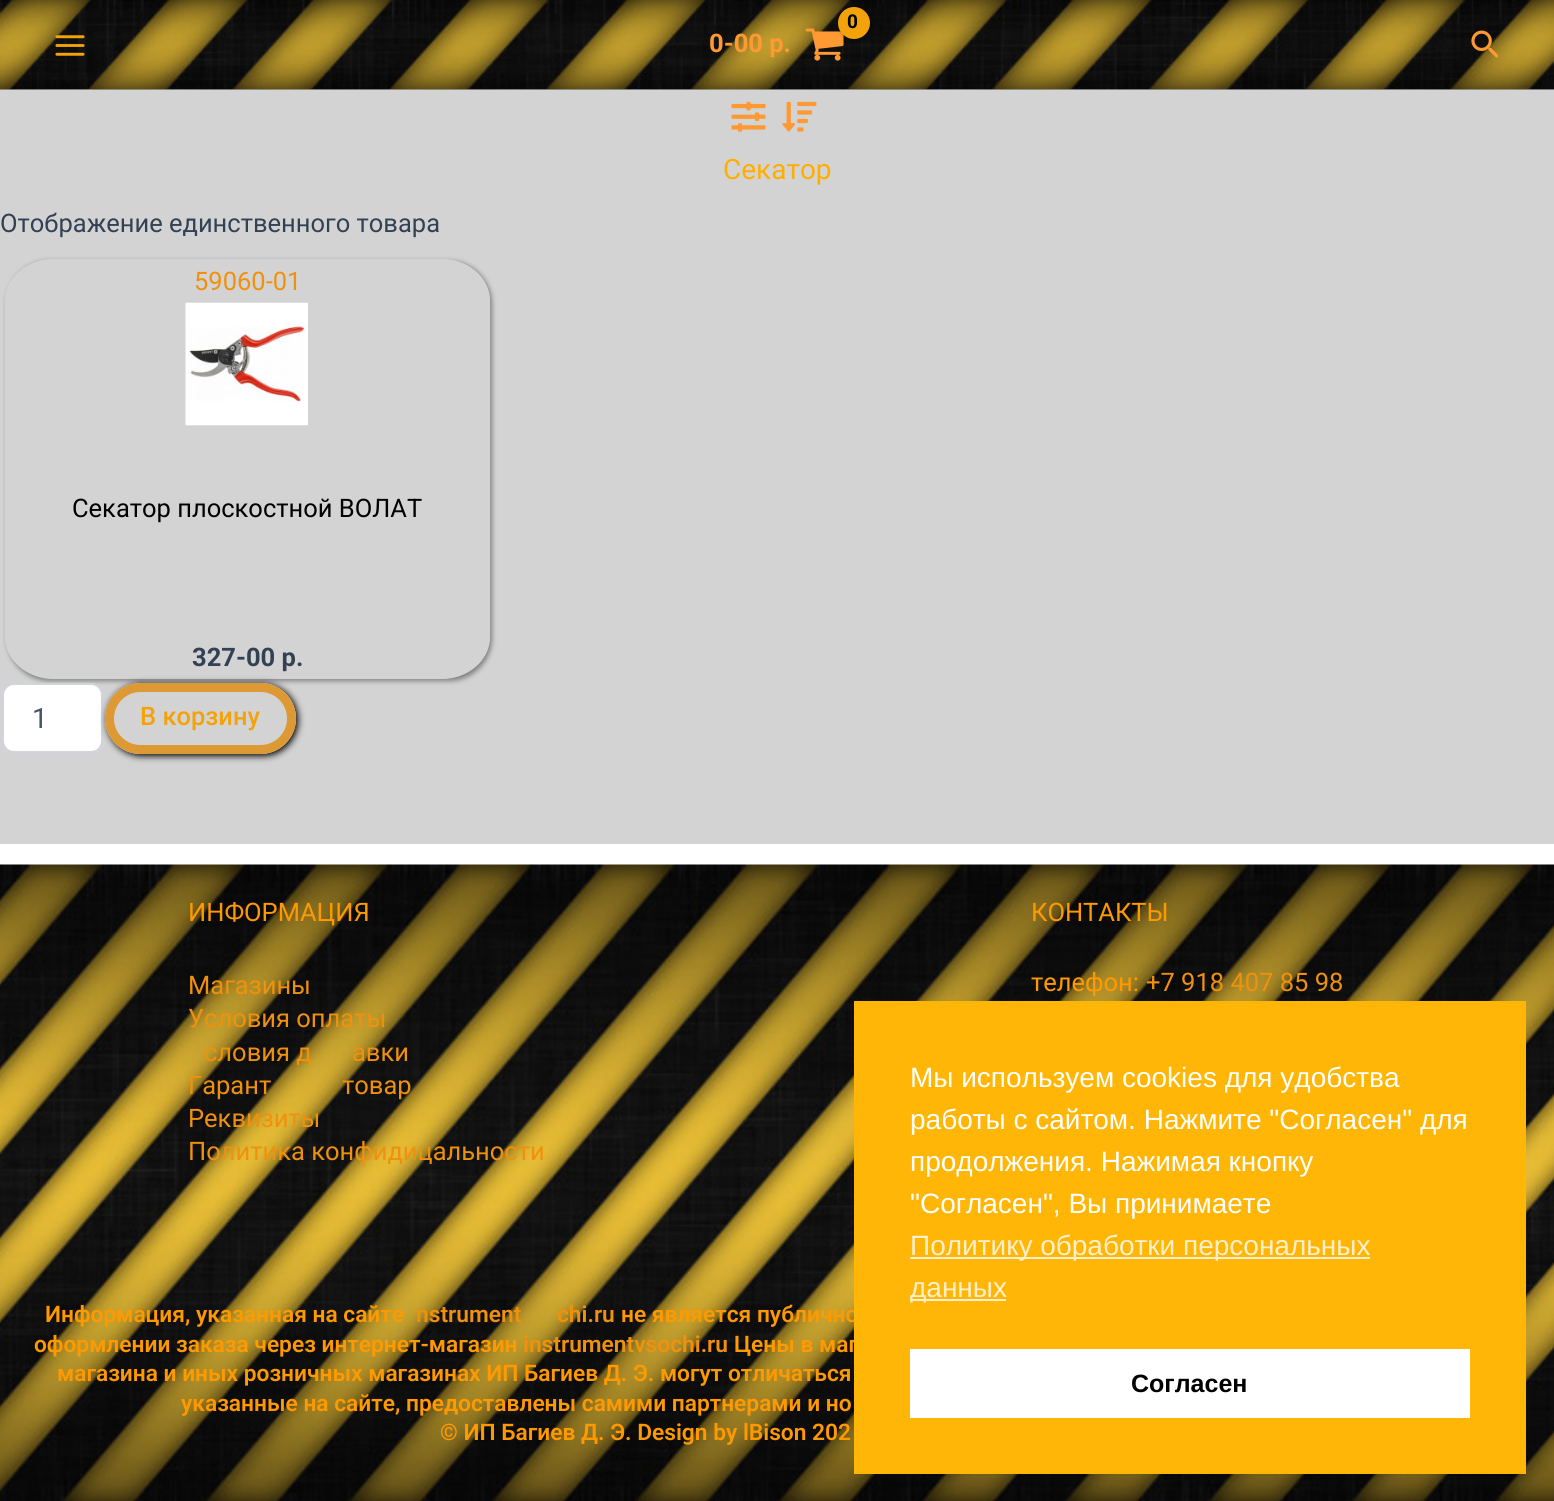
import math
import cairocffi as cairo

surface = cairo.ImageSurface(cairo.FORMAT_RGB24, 1554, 1501)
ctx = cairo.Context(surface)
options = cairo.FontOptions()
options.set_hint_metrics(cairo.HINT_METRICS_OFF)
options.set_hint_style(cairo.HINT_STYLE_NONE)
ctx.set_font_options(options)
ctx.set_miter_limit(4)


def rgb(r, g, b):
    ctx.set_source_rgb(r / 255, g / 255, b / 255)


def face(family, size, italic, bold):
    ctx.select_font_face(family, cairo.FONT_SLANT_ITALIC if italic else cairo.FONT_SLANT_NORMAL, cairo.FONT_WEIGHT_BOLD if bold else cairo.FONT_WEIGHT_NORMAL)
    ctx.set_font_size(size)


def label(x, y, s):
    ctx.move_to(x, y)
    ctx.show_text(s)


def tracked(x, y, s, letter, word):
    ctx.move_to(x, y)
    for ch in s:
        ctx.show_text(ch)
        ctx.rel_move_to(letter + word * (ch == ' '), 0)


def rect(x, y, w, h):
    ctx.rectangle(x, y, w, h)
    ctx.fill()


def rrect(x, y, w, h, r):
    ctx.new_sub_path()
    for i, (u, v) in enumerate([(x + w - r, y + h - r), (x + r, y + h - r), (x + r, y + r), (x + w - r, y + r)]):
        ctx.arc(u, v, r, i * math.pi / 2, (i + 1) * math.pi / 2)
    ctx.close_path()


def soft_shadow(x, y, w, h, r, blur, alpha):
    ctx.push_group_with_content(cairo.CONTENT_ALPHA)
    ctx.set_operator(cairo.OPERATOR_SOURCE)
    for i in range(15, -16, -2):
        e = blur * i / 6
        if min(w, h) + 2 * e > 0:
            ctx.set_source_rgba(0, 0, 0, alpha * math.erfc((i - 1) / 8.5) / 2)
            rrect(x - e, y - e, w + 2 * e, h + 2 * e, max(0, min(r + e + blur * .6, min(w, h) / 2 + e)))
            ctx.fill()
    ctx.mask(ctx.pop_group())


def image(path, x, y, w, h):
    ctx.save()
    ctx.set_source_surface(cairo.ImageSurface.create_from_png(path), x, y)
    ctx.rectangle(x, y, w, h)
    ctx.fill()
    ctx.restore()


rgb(255, 255, 255)
ctx.paint()
rgb(211, 211, 211)
rect(0, 89, 1554, 755)
image('image0.png', 0, 89, 1554, 1)
image('image1.png', 0, 0, 1554, 90)
image('image2.png', 55, 35, 30, 21)
image('image3.png', 805, 28, 39, 33)
rgb(0, 0, 0)
soft_shadow(840, 9, 32, 31, 15.5, 2.5, 0.3)
rgb(244, 162, 10)
ctx.arc(854, 23, 16, 0, 2 * math.pi)
ctx.fill()
face('Roboto', 19, 0, 1)
rgb(0, 0, 0)
tracked(847, 28, '0', -1, 0)
face('Roboto', 25.5, 0, 1)
rgb(255, 153, 51)
label(709, 52, '0-00 р.')
image('image4.png', 1471, 30, 27, 28)
image('image5.png', 731, 101, 35, 31)
image('image6.png', 782, 101, 35, 31)
face('Roboto', 28, 0, 0)
rgb(255, 174, 0)
label(723, 179, 'Секатор')
face('Roboto', 25.5, 0, 0)
rgb(51, 65, 85)
label(0, 232, 'Отображение единственного товара')
ctx.save()
ctx.set_fill_rule(cairo.FILL_RULE_EVEN_ODD)
ctx.new_path()
ctx.move_to(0, 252)
ctx.line_to(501, 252)
ctx.line_to(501, 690)
ctx.line_to(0, 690)
ctx.close_path()
ctx.move_to(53.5, 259)
ctx.line_to(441.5, 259)
ctx.curve_to(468.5, 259, 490, 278, 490, 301)
ctx.line_to(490, 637)
ctx.curve_to(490, 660, 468.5, 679, 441.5, 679)
ctx.line_to(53.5, 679)
ctx.curve_to(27, 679, 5, 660, 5, 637)
ctx.line_to(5, 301)
ctx.curve_to(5, 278, 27, 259, 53.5, 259)
ctx.close_path()
ctx.clip()
rgb(128, 128, 128)
soft_shadow(7, 261, 485, 420, 42, 2.5, 1)
ctx.restore()
rgb(239, 145, 13)
label(194, 290, '59060-01')
image('image7.png', 185, 302, 123, 124)
rgb(0, 0, 0)
label(72, 517, 'Секатор плоскостной ВОЛАТ')
face('Roboto', 25.5, 0, 1)
rgb(51, 65, 85)
label(192, 666, '327-00 р.')
rgb(255, 255, 255)
rrect(3, 684, 99, 68, 11)
ctx.fill_preserve()
rgb(209, 213, 219)
ctx.stroke()
face('Roboto', 28, 0, 0)
rgb(71, 85, 105)
label(32, 728, '1')
ctx.save()
ctx.set_fill_rule(cairo.FILL_RULE_EVEN_ODD)
ctx.new_path()
ctx.move_to(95, 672)
ctx.line_to(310, 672)
ctx.line_to(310, 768)
ctx.line_to(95, 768)
ctx.close_path()
ctx.move_to(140.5, 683)
ctx.line_to(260.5, 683)
ctx.curve_to(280, 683, 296, 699, 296, 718.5)
ctx.curve_to(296, 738, 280, 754, 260.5, 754)
ctx.line_to(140.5, 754)
ctx.curve_to(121, 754, 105, 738, 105, 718.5)
ctx.curve_to(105, 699, 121, 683, 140.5, 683)
ctx.close_path()
ctx.clip()
rgb(0, 0, 0)
soft_shadow(107, 684, 191, 72, 36, 3.5, 1)
ctx.restore()
rrect(109.5, 687.5, 182, 62, 31)
rgb(221, 153, 51)
ctx.set_line_width(9)
ctx.stroke()
face('Roboto Medium', 25.5, 0, 0)
rgb(244, 162, 10)
label(140, 725, 'В корзину')
image('image8.png', 0, 864, 1554, 637)
face('Roboto', 25.5, 0, 0)
rgb(255, 153, 0)
label(188, 921, 'ИНФОРМАЦИЯ')
rgb(239, 145, 13)
label(188, 994, 'Магазины')
label(188, 1027, 'Условия оплаты')
label(204, 1061, 'словия д')
label(352, 1061, 'авки')
label(188, 1094, 'Гарант')
label(342, 1094, 'товар')
label(188, 1127, 'Реквизиты')
label(188, 1160, 'Политика конфидицальности')
rgb(255, 153, 0)
label(1031, 921, 'КОНТАКТЫ')
label(1031, 991, 'телефон:')
rgb(239, 145, 13)
label(1146, 991, '+7 918 407 85 98')
face('Roboto SemiBold', 22.75, 0, 0)
rgb(255, 153, 0)
label(45, 1322, 'Информация, указанная на сайте')
rgb(239, 145, 13)
label(416, 1322, 'nstrument')
label(557, 1322, 'chi.ru')
rgb(255, 153, 0)
label(621, 1322, 'не является публично')
label(34, 1352, 'оформлении заказа через интернет-магазин')
rgb(239, 145, 13)
label(523, 1352, 'instrumentvsochi.ru')
rgb(255, 153, 0)
label(734, 1352, 'Цены в маг')
label(57, 1381, 'магазина и иных розничных магазинах ИП Багиев Д. Э. могут отличаться')
label(181, 1411, 'указанные на сайте, предоставлены самими партнерами и но')
label(440, 1440, '© ИП Багиев Д. Э. Design by lBison 202')
rgb(255, 182, 6)
rect(854, 1001, 672, 473)
face('Liberation Sans', 28, 0, 0)
rgb(255, 255, 255)
label(910, 1087, 'Мы используем cookies для удобства')
label(910, 1129, 'работы с сайтом. Нажмите "Согласен" для')
label(910, 1171, 'продолжения. Нажимая кнопку')
label(910, 1213, '"Согласен", Вы принимаете')
rgb(255, 240, 205)
rect(910, 1257, 460, 2)
label(910, 1255, 'Политику обработки персональных')
rect(910, 1299, 96, 2)
label(910, 1297, 'данных')
rgb(255, 255, 255)
rect(910, 1349, 560, 69)
face('Liberation Sans', 25, 0, 1)
rgb(0, 0, 0)
label(1131, 1392, 'Согласен')
surface.write_to_png('render.png')
